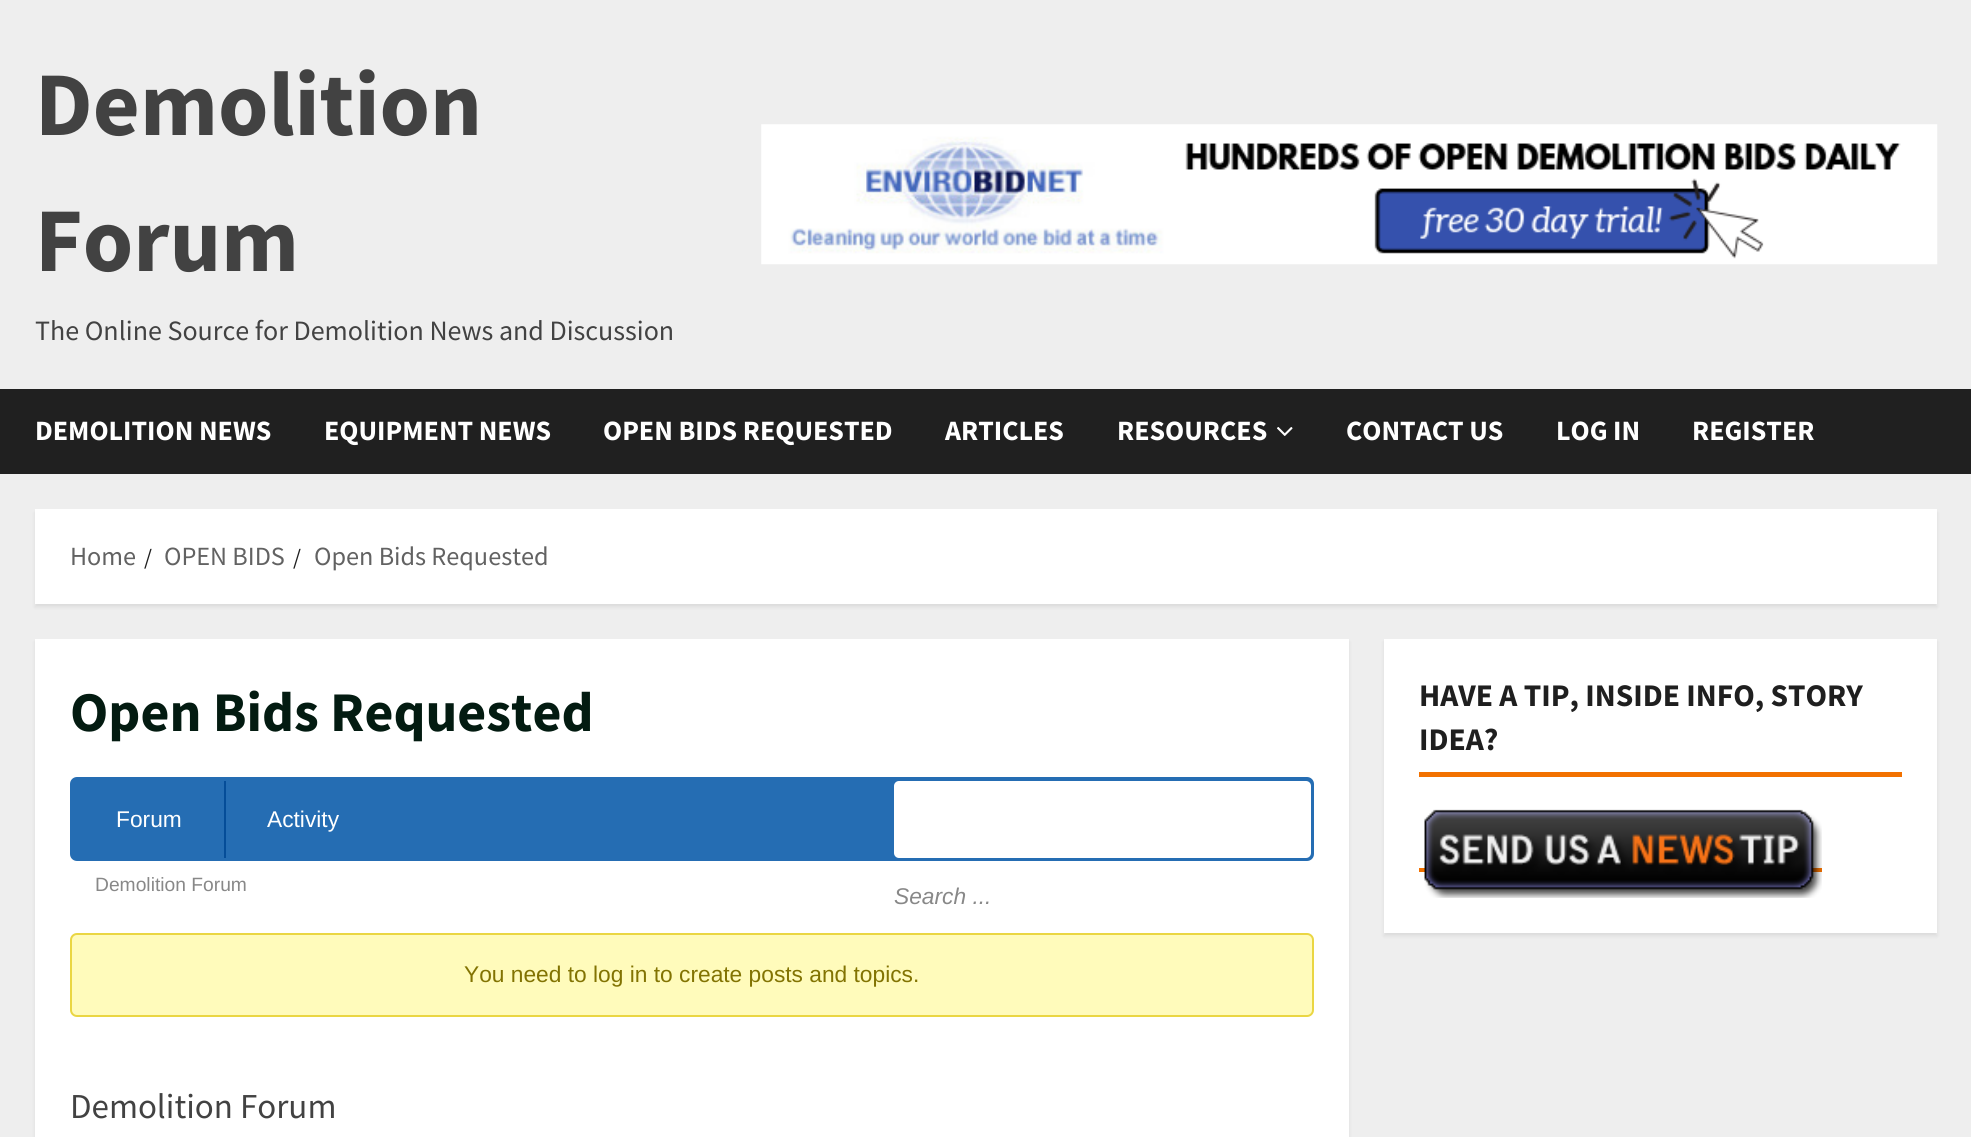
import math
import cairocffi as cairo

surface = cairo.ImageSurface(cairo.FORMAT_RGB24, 1971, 1137)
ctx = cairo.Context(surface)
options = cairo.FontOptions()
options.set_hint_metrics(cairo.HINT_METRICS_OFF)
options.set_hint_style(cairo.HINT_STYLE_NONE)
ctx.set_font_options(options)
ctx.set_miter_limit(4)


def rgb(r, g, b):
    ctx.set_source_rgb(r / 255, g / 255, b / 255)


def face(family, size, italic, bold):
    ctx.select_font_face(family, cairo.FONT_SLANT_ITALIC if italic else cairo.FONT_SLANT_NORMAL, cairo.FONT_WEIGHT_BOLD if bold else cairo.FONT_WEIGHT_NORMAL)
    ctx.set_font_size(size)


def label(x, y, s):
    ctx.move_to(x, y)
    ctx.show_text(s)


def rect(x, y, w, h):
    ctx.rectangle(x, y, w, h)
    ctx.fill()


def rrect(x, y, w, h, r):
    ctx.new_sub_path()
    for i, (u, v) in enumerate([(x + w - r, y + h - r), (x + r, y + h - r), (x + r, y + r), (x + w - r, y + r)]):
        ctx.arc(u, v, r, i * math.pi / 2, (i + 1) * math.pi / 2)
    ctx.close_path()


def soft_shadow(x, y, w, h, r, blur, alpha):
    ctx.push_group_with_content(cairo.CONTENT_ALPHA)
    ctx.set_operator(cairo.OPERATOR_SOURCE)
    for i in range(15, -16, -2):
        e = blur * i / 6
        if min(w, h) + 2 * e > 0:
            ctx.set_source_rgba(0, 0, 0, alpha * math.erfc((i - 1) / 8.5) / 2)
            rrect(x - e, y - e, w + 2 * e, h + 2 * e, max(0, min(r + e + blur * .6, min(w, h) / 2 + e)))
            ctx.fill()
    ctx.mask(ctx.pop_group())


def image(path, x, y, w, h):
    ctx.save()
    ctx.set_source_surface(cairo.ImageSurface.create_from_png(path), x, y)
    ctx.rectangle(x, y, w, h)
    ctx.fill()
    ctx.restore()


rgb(238, 238, 238)
ctx.paint()
face('Source Sans Pro', 91, 0, 1)
rgb(66, 66, 66)
label(35, 135, 'Demolition')
label(35, 271, 'Forum')
face('Source Sans Pro', 28, 0, 0)
label(35, 340, 'The Online Source for Demolition News and Discussion')
image('image0.png', 761, 124, 1177, 141)
rgb(32, 32, 32)
rect(0, 389, 1971, 85)
face('Source Sans Pro', 28, 0, 1)
rgb(255, 255, 255)
label(35, 440, 'DEMOLITION NEWS')
label(324, 440, 'EQUIPMENT NEWS')
label(603, 440, 'OPEN BIDS REQUESTED')
label(945, 440, 'ARTICLES')
label(1117, 440, 'RESOURCES')
image('image1.png', 1277, 427, 16, 9)
label(1346, 440, 'CONTACT US')
label(1556, 440, 'LOG IN')
label(1692, 440, 'REGISTER')
rgb(0, 0, 0)
soft_shadow(35, 513, 1902, 94, 0, 2, 0.08)
rgb(255, 255, 255)
rect(35, 509, 1902, 95)
face('Source Sans Pro', 26.25, 0, 0)
rgb(98, 98, 98)
label(70, 565, 'Home')
face('Source Sans Pro', 22.75, 0, 0)
rgb(31, 31, 31)
label(144, 565, '/')
face('Source Sans Pro', 26.25, 0, 0)
rgb(98, 98, 98)
label(164, 565, 'OPEN BIDS')
face('Source Sans Pro', 22.75, 0, 0)
rgb(31, 31, 31)
label(293, 565, '/')
face('Source Sans Pro', 26.25, 0, 0)
rgb(98, 98, 98)
label(314, 565, 'Open Bids Requested')
rgb(0, 0, 0)
soft_shadow(35, 642, 1314, 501, 0, 2, 0.08)
rgb(255, 255, 255)
rect(35, 639, 1314, 498)
face('Source Sans Pro', 56, 0, 1)
rgb(3, 27, 17)
label(70, 731, 'Open Bids Requested')
rgb(37, 109, 179)
rrect(70, 777, 1244, 84, 7)
ctx.fill()
face('Liberation Sans', 22.75, 0, 0)
rgb(255, 255, 255)
label(116, 827, 'Forum')
rgb(5, 77, 152)
rect(224, 781, 2, 77)
rgb(255, 255, 255)
label(267, 827, 'Activity')
rrect(894, 781, 417, 77, 5)
ctx.fill()
face('Liberation Sans', 22.75, 1, 0)
rgb(136, 136, 136)
label(894, 904, 'Search ...')
face('Liberation Sans', 19.25, 0, 0)
label(95, 891, 'Demolition Forum')
rgb(255, 251, 187)
rrect(71, 934, 1242, 82, 6)
ctx.fill_preserve()
rgb(234, 214, 67)
ctx.stroke()
face('Liberation Sans', 22.75, 0, 0)
rgb(130, 115, 2)
label(464, 982, 'You need to log in to create posts and topics.')
face('Source Sans Pro', 35, 0, 0)
rgb(66, 66, 66)
label(70, 1118, 'Demolition Forum')
rgb(0, 0, 0)
soft_shadow(1384, 642, 553, 294, 0, 2, 0.08)
rgb(255, 255, 255)
rect(1384, 639, 553, 294)
face('Source Sans Pro', 31.5, 0, 1)
rgb(31, 31, 31)
label(1419, 706, 'HAVE A TIP, INSIDE INFO, STORY')
label(1419, 750, 'IDEA?')
rgb(242, 113, 0)
rect(1419, 772, 483, 5)
rect(1419, 868, 403, 4)
image('image2.png', 1424, 809, 398, 89)
surface.write_to_png('render.png')
